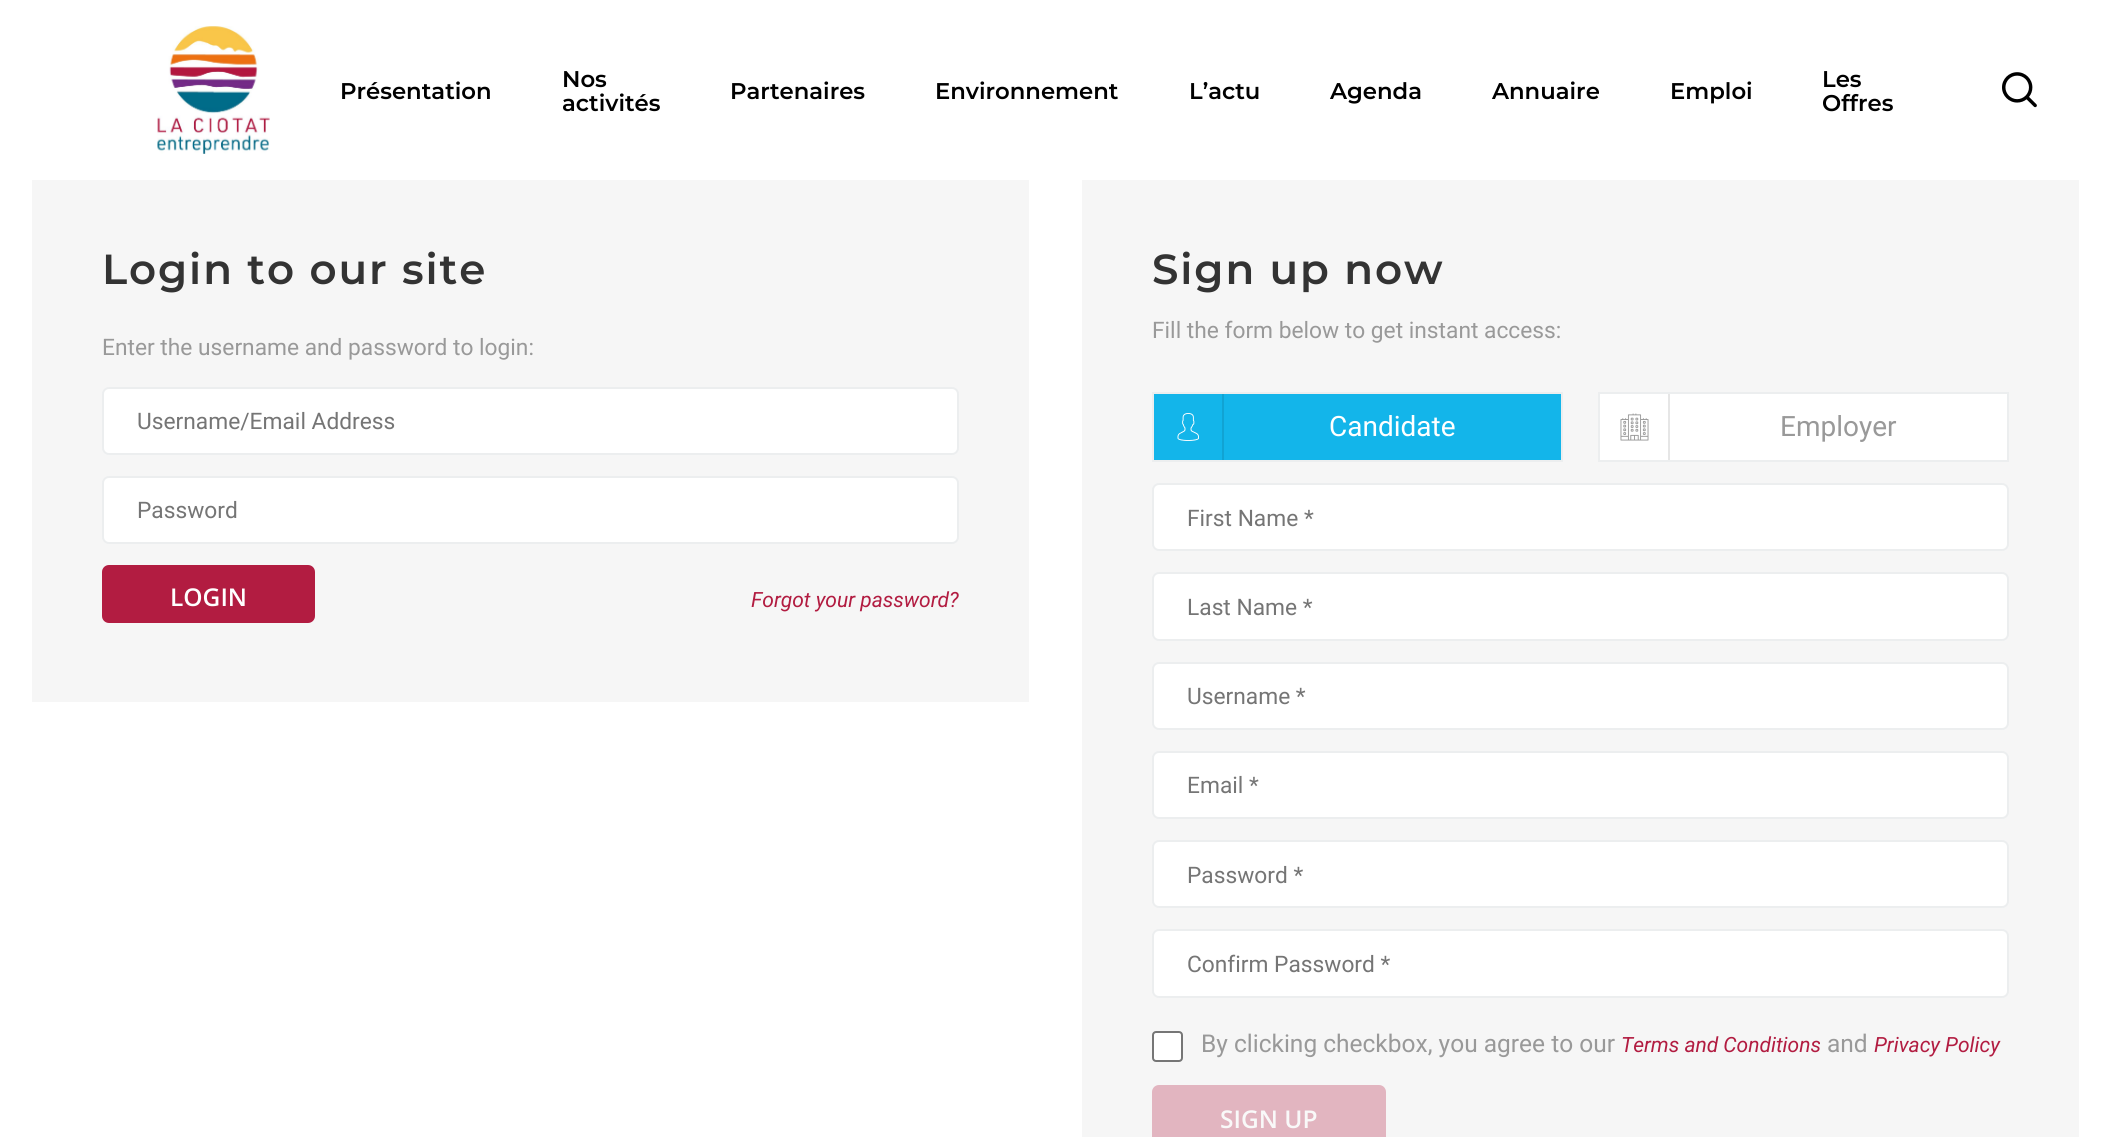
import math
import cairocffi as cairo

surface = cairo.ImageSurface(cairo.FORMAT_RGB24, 2110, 1137)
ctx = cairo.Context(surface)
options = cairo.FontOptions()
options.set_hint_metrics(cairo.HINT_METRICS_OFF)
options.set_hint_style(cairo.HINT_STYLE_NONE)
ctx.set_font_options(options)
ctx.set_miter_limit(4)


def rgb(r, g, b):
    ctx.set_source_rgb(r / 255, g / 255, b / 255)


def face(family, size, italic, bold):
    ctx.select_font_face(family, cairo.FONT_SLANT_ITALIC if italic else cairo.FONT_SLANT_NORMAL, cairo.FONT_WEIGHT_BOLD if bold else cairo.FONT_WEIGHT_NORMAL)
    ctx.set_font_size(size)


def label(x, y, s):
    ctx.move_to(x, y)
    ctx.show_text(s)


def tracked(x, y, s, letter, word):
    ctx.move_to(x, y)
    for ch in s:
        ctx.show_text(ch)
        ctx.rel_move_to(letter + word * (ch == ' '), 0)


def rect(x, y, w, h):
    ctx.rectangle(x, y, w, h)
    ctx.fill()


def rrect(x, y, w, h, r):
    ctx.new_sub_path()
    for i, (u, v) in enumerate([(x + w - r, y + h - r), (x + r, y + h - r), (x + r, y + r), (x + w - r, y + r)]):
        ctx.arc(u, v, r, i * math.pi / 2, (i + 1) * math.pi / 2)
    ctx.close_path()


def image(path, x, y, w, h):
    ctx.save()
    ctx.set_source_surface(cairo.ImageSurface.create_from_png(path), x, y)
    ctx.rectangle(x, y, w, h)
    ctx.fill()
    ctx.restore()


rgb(255, 255, 255)
ctx.paint()
image('image0.png', 157, 26, 113, 128)
face('Montserrat Thin', 22.75, 0, 0)
rgb(0, 0, 0)
label(340, 99, 'Présentation')
label(562, 87, 'Nos')
label(562, 111, 'activités')
label(730, 99, 'Partenaires')
label(935, 99, 'Environnement')
label(1189, 99, 'L’actu')
label(1330, 99, 'Agenda')
label(1492, 99, 'Annuaire')
label(1670, 99, 'Emploi')
label(1822, 87, 'Les')
label(1822, 111, 'Offres')
image('image1.png', 2002, 72, 35, 36)
rgb(246, 246, 246)
rect(32, 180, 997, 522)
face('Montserrat Thin', 42, 0, 0)
rgb(51, 51, 51)
tracked(102, 284, 'Login to our site', 1.9, 0)
face('Roboto', 22.75, 0, 0)
rgb(153, 153, 153)
label(102, 355, 'Enter the username and password to login:')
rgb(255, 255, 255)
rrect(103, 388, 855, 66, 6)
ctx.fill_preserve()
rgb(236, 238, 239)
ctx.stroke()
rgb(117, 117, 117)
label(137, 429, 'Username/Email Address')
rgb(255, 255, 255)
rrect(103, 477, 855, 66, 6)
ctx.fill_preserve()
rgb(236, 238, 239)
ctx.stroke()
rgb(117, 117, 117)
label(137, 518, 'Password')
rgb(178, 28, 65)
rrect(102, 565, 213, 58, 7)
ctx.fill()
face('Open Sans SemiBold', 24.5, 0, 0)
rgb(255, 255, 255)
label(170, 606, 'LOGIN')
face('Roboto', 21, 1, 0)
rgb(178, 28, 65)
label(751, 607, 'Forgot your password?')
rgb(246, 246, 246)
rect(1082, 180, 997, 957)
face('Montserrat Thin', 42, 0, 0)
rgb(51, 51, 51)
tracked(1152, 284, 'Sign up now', 1.9, 0)
face('Roboto', 22.75, 0, 0)
rgb(153, 153, 153)
label(1152, 338, 'Fill the form below to get instant access:')
rgb(19, 181, 234)
ctx.rectangle(1153, 393, 409, 68)
ctx.fill_preserve()
rgb(236, 238, 239)
ctx.stroke()
rgb(17, 163, 211)
rect(1222, 394, 2, 66)
image('image2.png', 1177, 413, 22, 28)
face('Roboto', 28, 0, 0)
rgb(255, 255, 255)
label(1329, 436, 'Candidate')
ctx.rectangle(1599, 393, 409, 68)
ctx.fill_preserve()
rgb(236, 238, 239)
ctx.stroke()
rgb(230, 230, 230)
rect(1668, 394, 2, 66)
image('image3.png', 1620, 413, 29, 28)
rgb(153, 153, 153)
label(1780, 436, 'Employer')
rgb(255, 255, 255)
rrect(1153, 484, 855, 66, 6)
ctx.fill_preserve()
rgb(236, 238, 239)
ctx.stroke()
face('Roboto', 22.75, 0, 0)
rgb(117, 117, 117)
label(1187, 526, 'First Name *')
rgb(255, 255, 255)
rrect(1153, 573, 855, 67, 6)
ctx.fill_preserve()
rgb(236, 238, 239)
ctx.stroke()
rgb(117, 117, 117)
label(1187, 615, 'Last Name *')
rgb(255, 255, 255)
rrect(1153, 663, 855, 66, 6)
ctx.fill_preserve()
rgb(236, 238, 239)
ctx.stroke()
rgb(117, 117, 117)
label(1187, 704, 'Username *')
rgb(255, 255, 255)
rrect(1153, 752, 855, 66, 6)
ctx.fill_preserve()
rgb(236, 238, 239)
ctx.stroke()
rgb(117, 117, 117)
label(1187, 793, 'Email *')
rgb(255, 255, 255)
rrect(1153, 841, 855, 66, 6)
ctx.fill_preserve()
rgb(236, 238, 239)
ctx.stroke()
rgb(117, 117, 117)
label(1187, 883, 'Password *')
rgb(255, 255, 255)
rrect(1153, 930, 855, 67, 6)
ctx.fill_preserve()
rgb(236, 238, 239)
ctx.stroke()
rgb(117, 117, 117)
label(1187, 972, 'Confirm Password *')
rgb(255, 255, 255)
rrect(1153, 1032, 29, 29, 3)
ctx.fill_preserve()
rgb(118, 118, 118)
ctx.stroke()
face('Roboto', 24.5, 0, 0)
rgb(153, 153, 153)
label(1201, 1052, 'By clicking checkbox, you agree to our')
face('Roboto', 21, 1, 0)
rgb(178, 28, 65)
label(1621, 1052, 'Terms and Conditions')
face('Roboto', 24.5, 0, 0)
rgb(153, 153, 153)
label(1827, 1052, 'and')
face('Roboto', 21, 1, 0)
rgb(178, 28, 65)
label(1874, 1052, 'Privacy Policy')
rgb(226, 181, 192)
rrect(1152, 1085, 234, 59, 7)
ctx.fill()
face('Open Sans SemiBold', 24.5, 0, 0)
rgb(249, 249, 249)
label(1220, 1128, 'SIGN UP')
surface.write_to_png('render.png')
